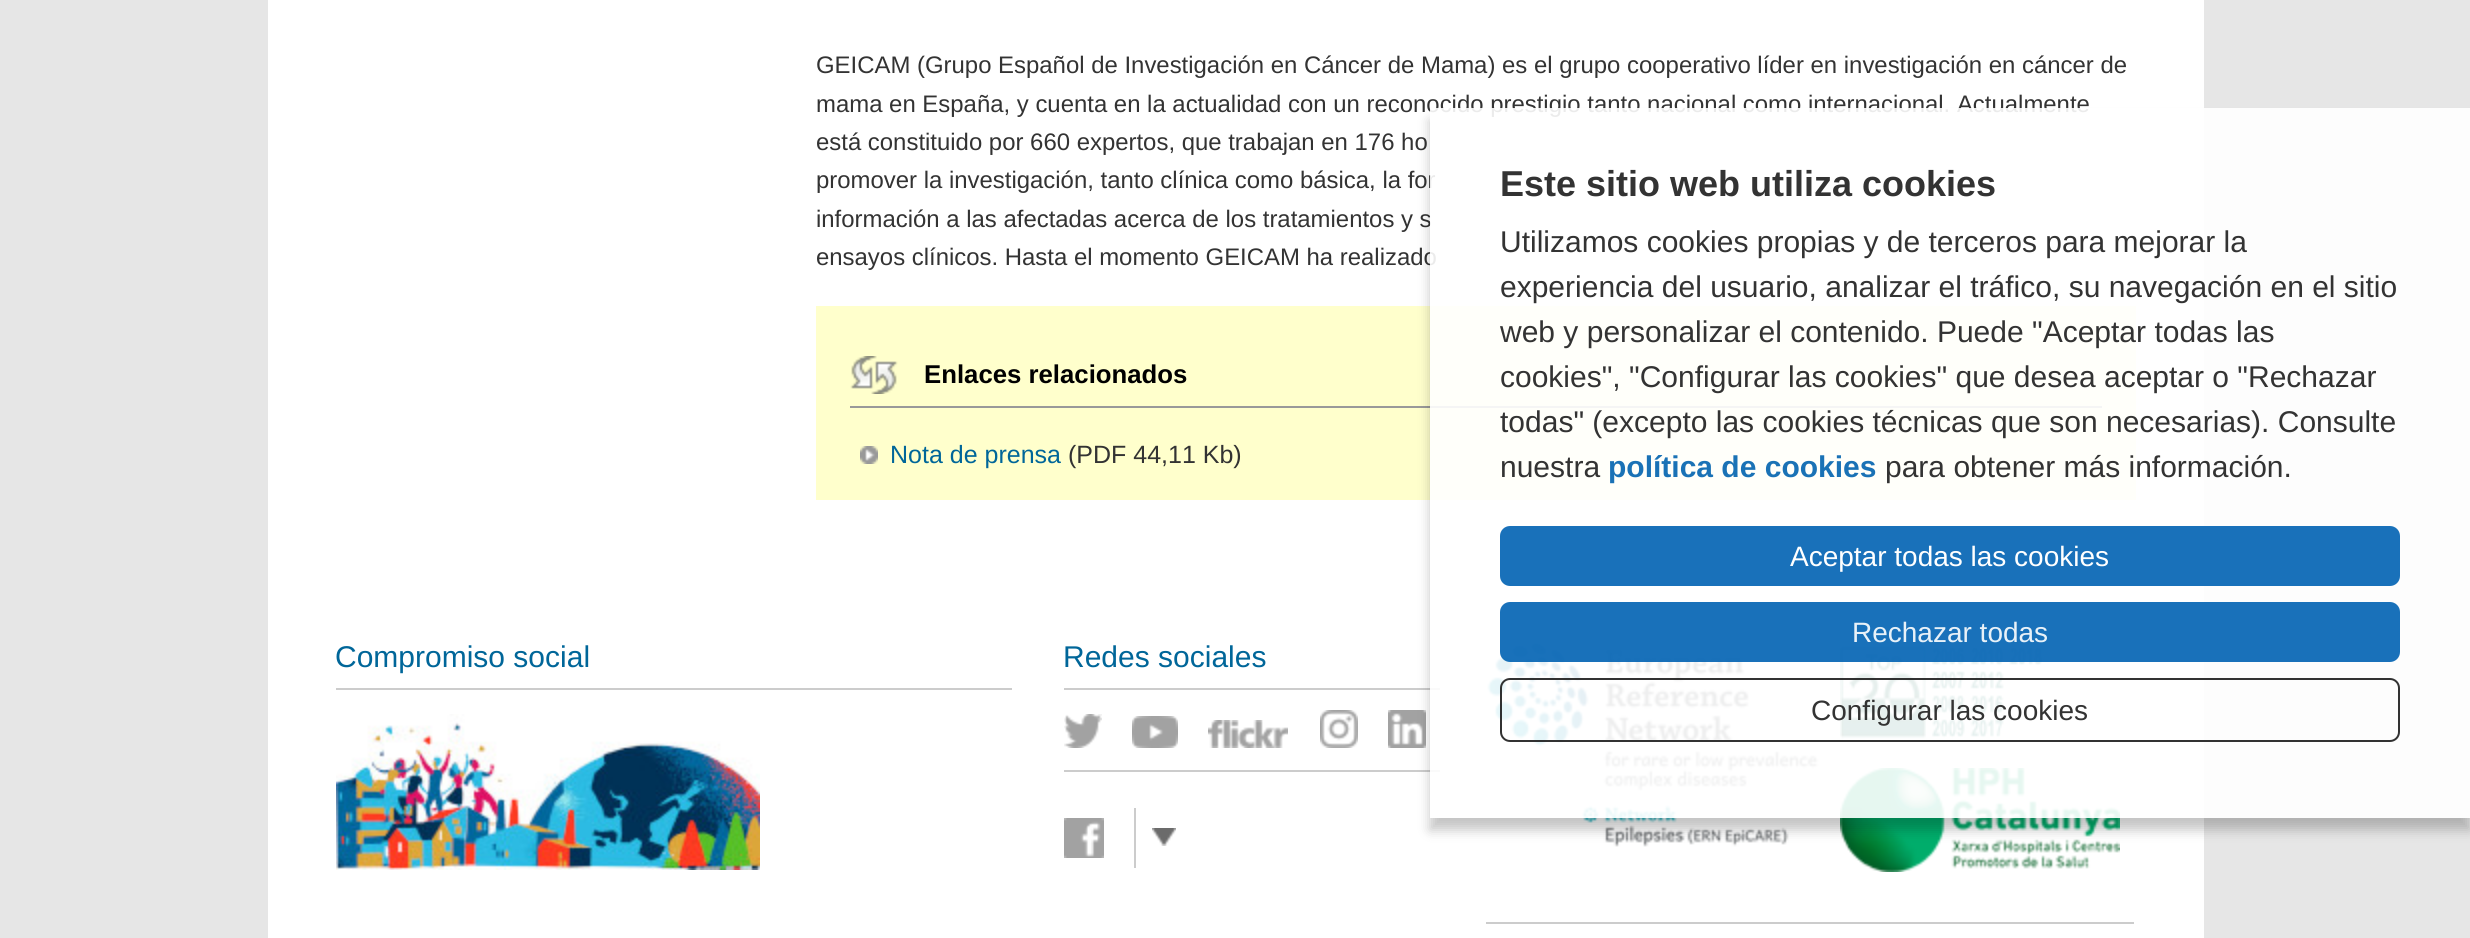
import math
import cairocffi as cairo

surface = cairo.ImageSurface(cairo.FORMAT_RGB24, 2470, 938)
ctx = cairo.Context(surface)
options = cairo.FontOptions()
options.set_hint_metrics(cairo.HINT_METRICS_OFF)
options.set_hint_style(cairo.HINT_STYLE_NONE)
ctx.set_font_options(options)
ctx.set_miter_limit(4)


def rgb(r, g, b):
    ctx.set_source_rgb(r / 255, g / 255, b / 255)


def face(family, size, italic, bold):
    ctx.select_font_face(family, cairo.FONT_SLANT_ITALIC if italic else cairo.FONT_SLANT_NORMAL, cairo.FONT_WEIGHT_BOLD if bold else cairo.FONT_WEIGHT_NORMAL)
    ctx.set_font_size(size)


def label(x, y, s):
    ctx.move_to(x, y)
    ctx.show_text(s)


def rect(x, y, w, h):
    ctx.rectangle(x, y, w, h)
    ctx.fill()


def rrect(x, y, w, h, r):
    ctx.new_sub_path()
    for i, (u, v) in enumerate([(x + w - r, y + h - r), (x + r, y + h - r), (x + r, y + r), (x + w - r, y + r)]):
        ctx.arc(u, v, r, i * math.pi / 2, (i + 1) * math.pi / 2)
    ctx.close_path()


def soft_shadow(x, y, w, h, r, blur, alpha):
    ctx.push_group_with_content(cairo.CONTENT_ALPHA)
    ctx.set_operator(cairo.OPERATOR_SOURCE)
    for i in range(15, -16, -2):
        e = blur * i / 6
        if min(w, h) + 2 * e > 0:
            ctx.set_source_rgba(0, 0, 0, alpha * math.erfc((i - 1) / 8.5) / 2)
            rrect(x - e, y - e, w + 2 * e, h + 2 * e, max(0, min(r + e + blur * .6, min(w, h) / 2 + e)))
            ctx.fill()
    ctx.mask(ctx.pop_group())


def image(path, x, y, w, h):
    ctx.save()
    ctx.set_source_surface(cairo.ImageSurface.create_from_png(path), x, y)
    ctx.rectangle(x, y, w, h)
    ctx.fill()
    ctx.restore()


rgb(230, 230, 230)
ctx.paint()
rgb(255, 255, 255)
rect(268, 0, 1936, 938)
face('Liberation Sans', 23.92, 0, 0)
rgb(51, 51, 51)
label(816, 73, 'GEICAM (Grupo Español de Investigación en Cáncer de Mama) es el grupo cooperativo líder en investigación en cáncer de')
label(816, 112, 'mama en España, y cuenta en la actualidad con un reconocido prestigio tanto nacional como internacional. Actualmente')
label(816, 150, 'está constituido por 660 expertos, que trabajan en 176 ho')
label(816, 188, 'promover la investigación, tanto clínica como básica, la for')
label(816, 227, 'información a las afectadas acerca de los tratamientos y s')
label(816, 265, 'ensayos clínicos. Hasta el momento GEICAM ha realizado')
rgb(255, 255, 204)
rect(816, 306, 1320, 194)
image('image0.png', 850, 356, 48, 38)
rgb(153, 153, 153)
rect(850, 406, 1252, 2)
face('Liberation Sans', 25.75, 0, 1)
rgb(0, 0, 0)
label(924, 383, 'Enlaces relacionados')
image('image1.png', 860, 446, 18, 18)
face('Liberation Sans', 25, 0, 0)
rgb(0, 102, 153)
label(890, 463, 'Nota de prensa')
rgb(51, 51, 51)
label(1068, 463, '(PDF 44,11 Kb)')
rgb(204, 204, 204)
rect(336, 688, 676, 2)
face('Liberation Sans', 30, 0, 0)
rgb(0, 102, 153)
label(335, 667, 'Compromiso social')
image('image2.png', 336, 714, 424, 156)
rgb(204, 204, 204)
rect(1064, 688, 376, 2)
rgb(0, 102, 153)
label(1063, 667, 'Redes sociales')
image('image3.png', 1064, 714, 38, 34)
image('image4.png', 1132, 716, 46, 32)
image('image5.png', 1208, 720, 80, 28)
image('image6.png', 1320, 710, 38, 38)
image('image7.png', 1388, 710, 38, 38)
rgb(204, 204, 204)
rect(1064, 770, 376, 2)
image('image8.png', 1064, 818, 40, 40)
image('image9.png', 1152, 828, 24, 18)
rect(1134, 808, 2, 60)
image('image10.png', 1487, 642, 332, 205)
image('image11.png', 1840, 642, 202, 98)
image('image12.png', 1840, 768, 280, 104)
rect(1486, 922, 648, 2)
ctx.save()
ctx.set_fill_rule(cairo.FILL_RULE_EVEN_ODD)
ctx.new_path()
ctx.move_to(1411, 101)
ctx.line_to(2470, 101)
ctx.line_to(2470, 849)
ctx.line_to(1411, 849)
ctx.close_path()
ctx.move_to(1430, 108)
ctx.line_to(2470, 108)
ctx.line_to(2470, 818)
ctx.line_to(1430, 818)
ctx.close_path()
ctx.clip()
rgb(0, 0, 0)
soft_shadow(1430, 120, 1040, 710, 0, 6, 0.23)
ctx.restore()
ctx.set_source_rgba(1, 1, 1, 0.9)
rect(1430, 108, 1040, 710)
face('Liberation Sans', 36, 0, 1)
rgb(51, 51, 51)
label(1500, 196, 'Este sitio web utiliza cookies')
face('Liberation Sans', 30, 0, 0)
label(1500, 252, 'Utilizamos cookies propias y de terceros para mejorar la')
label(1500, 297, 'experiencia del usuario, analizar el tráfico, su navegación en el sitio')
label(1500, 342, 'web y personalizar el contenido. Puede "Aceptar todas las')
label(1500, 387, 'cookies", "Configurar las cookies" que desea aceptar o "Rechazar')
label(1500, 432, 'todas" (excepto las cookies técnicas que son necesarias). Consulte')
label(1500, 477, 'nuestra')
face('Liberation Sans', 30, 0, 1)
rgb(26, 114, 182)
label(1608, 477, 'política de cookies')
face('Liberation Sans', 30, 0, 0)
rgb(51, 51, 51)
label(1885, 477, 'para obtener más información.')
ctx.set_source_rgba(0, 0.384, 0.702, 0.9)
rrect(1500, 526, 900, 60, 10)
ctx.fill()
face('Liberation Sans', 28, 0, 0)
rgb(255, 255, 255)
label(1790, 566, 'Aceptar todas las cookies')
ctx.set_source_rgba(0, 0.384, 0.702, 0.9)
rrect(1500, 602, 900, 60, 10)
ctx.fill()
rgb(232, 241, 248)
label(1852, 642, 'Rechazar todas')
rrect(1501, 679, 898, 62, 9)
ctx.set_source_rgba(0.11, 0.11, 0.11, 0.9)
ctx.stroke()
rgb(51, 51, 51)
label(1811, 720, 'Configurar las cookies')
surface.write_to_png('render.png')
